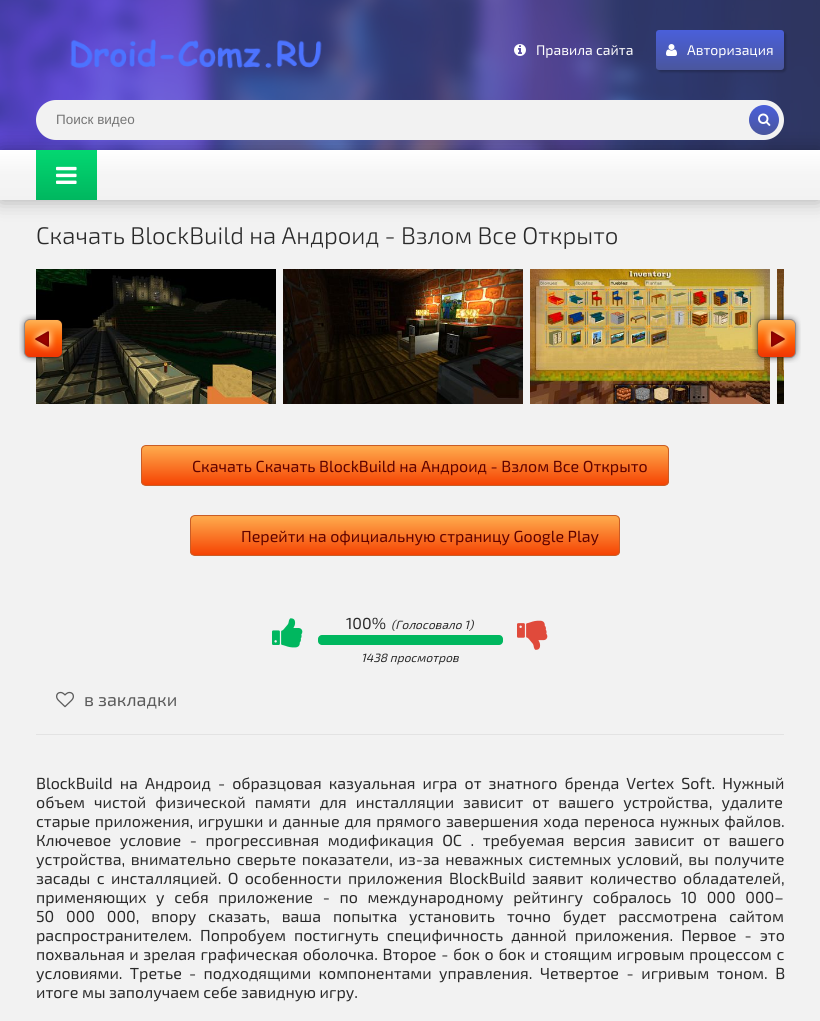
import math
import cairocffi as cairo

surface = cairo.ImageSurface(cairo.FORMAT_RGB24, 820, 1021)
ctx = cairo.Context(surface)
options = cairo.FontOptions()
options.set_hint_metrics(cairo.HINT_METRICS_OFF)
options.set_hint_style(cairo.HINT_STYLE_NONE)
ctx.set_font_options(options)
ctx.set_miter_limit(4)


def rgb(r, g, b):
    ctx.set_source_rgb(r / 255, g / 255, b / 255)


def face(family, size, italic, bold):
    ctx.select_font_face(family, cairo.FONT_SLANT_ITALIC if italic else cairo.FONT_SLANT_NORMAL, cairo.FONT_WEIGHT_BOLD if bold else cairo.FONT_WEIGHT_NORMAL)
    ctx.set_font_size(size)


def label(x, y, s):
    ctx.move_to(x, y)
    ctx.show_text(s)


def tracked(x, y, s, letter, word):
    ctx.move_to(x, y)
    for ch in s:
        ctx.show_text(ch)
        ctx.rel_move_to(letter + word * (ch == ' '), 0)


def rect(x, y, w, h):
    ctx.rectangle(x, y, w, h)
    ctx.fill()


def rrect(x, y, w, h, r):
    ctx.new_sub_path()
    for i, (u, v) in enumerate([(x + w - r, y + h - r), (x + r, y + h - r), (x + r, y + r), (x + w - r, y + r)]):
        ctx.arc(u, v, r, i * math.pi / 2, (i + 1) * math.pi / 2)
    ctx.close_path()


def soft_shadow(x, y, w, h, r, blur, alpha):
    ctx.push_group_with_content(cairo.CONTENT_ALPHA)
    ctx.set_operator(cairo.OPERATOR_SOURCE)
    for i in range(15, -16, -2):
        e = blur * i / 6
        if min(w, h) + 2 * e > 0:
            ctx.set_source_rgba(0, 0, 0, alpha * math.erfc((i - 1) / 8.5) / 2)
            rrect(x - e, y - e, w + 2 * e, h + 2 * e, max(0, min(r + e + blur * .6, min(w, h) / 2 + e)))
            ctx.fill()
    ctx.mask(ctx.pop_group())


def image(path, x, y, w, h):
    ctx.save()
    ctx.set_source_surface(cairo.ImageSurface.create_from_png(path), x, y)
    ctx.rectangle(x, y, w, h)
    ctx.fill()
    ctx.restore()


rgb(242, 242, 242)
ctx.paint()
image('image0.png', 0, 0, 820, 150)
image('image1.png', 70, 39, 252, 30)
image('image2.png', 514, 44, 12, 12)
face('Exo 2', 14, 0, 0)
rgb(255, 255, 255)
label(536, 55, 'Правила сайта')
rgb(0, 0, 0)
soft_shadow(658, 32, 128, 40, 3, 1, 0.2)
gradient = cairo.LinearGradient(720, 30, 720, 70)
gradient.add_color_stop_rgba(0, 0.29, 0.373, 0.855, 1)
gradient.add_color_stop_rgba(1, 0.29, 0.337, 0.616, 1)
ctx.set_source(gradient)
rrect(656, 30, 128, 40, 3)
ctx.fill()
image('image3.png', 666, 44, 11, 12)
rgb(255, 255, 255)
label(687, 55, 'Авторизация')
rgb(0, 0, 0)
soft_shadow(0, 150, 820, 50, 0, 10, 0.3)
rgb(242, 242, 242)
rrect(36, 100, 748, 40, 20)
ctx.fill()
face('Liberation Sans', 13.5, 0, 0)
rgb(117, 117, 117)
label(56, 124, 'Поиск видео')
gradient = cairo.LinearGradient(764, 105, 764, 135)
gradient.add_color_stop_rgba(0, 0.29, 0.373, 0.855, 1)
gradient.add_color_stop_rgba(1, 0.29, 0.337, 0.616, 1)
ctx.set_source(gradient)
ctx.new_path()
ctx.arc(764, 120, 15, 0, 2 * math.pi)
ctx.fill()
image('image4.png', 758, 113, 13, 13)
gradient = cairo.LinearGradient(410, 150, 410, 200)
gradient.add_color_stop_rgba(0, 1, 1, 1, 1)
gradient.add_color_stop_rgba(0.5, 0.961, 0.961, 0.961, 1)
gradient.add_color_stop_rgba(1, 0.949, 0.949, 0.949, 1)
ctx.set_source(gradient)
rect(0, 150, 820, 50)
gradient = cairo.LinearGradient(67, 150, 67, 200)
gradient.add_color_stop_rgba(0, 0.012, 0.843, 0.443, 1)
gradient.add_color_stop_rgba(1, 0, 0.718, 0.373, 1)
ctx.set_source(gradient)
rect(36, 150, 61, 50)
image('image5.png', 56, 166, 21, 18)
face('Exo 2 Light', 24, 0, 0)
rgb(42, 42, 42)
label(36, 244, 'Скачать BlockBuild на Андроид - Взлом Все Открыто')
image('image6.png', 36, 269, 240, 135)
image('image7.png', 283, 269, 240, 135)
image('image8.png', 530, 269, 240, 135)
image('image9.png', 777, 269, 7, 135)
image('image10.png', 19, 314, 48, 49)
image('image11.png', 752, 314, 49, 49)
ctx.save()
rrect(141, 445, 528, 41, 5)
ctx.clip()
gradient = cairo.LinearGradient(405, 446, 405, 485)
gradient.add_color_stop_rgba(0.05, 0.996, 0.655, 0.29, 1)
gradient.add_color_stop_rgba(1, 0.961, 0.263, 0.012, 1)
ctx.set_source(gradient)
rect(141, 446, 528, 39)
ctx.restore()
rrect(141.5, 445.5, 527, 40, 4.5)
rgb(201, 93, 38)
ctx.set_line_width(1)
ctx.stroke()
face('Exo 2', 16, 0, 0)
rgb(96, 2, 0)
label(192, 472, 'Скачать Скачать BlockBuild на Андроид - Взлом Все Открыто')
ctx.save()
rrect(190, 515, 430, 41, 5)
ctx.clip()
gradient = cairo.LinearGradient(405, 516, 405, 555)
gradient.add_color_stop_rgba(0.05, 0.996, 0.655, 0.29, 1)
gradient.add_color_stop_rgba(1, 0.961, 0.263, 0.012, 1)
ctx.set_source(gradient)
rect(190, 516, 430, 39)
ctx.restore()
rrect(190.5, 515.5, 429, 40, 4.5)
rgb(201, 93, 38)
ctx.stroke()
rgb(96, 2, 0)
label(241, 542, 'Перейти на официальную страницу Google Play')
rgb(227, 227, 227)
rect(36, 734, 748, 1)
image('image12.png', 272, 618, 31, 30)
rgb(42, 42, 42)
label(346, 629, '100%')
face('Exo 2', 12, 1, 0)
label(391, 629, '(Голосовало 1)')
rgb(0, 183, 95)
rrect(318, 635, 185, 10, 4)
ctx.fill()
rgb(42, 42, 42)
label(361, 662, '1438 просмотров')
image('image13.png', 517, 620, 31, 30)
image('image14.png', 56, 691, 18, 17)
face('Exo 2', 18, 0, 0)
rgb(92, 92, 92)
label(84, 706, 'в закладки')
face('Exo 2', 16, 0, 0)
rgb(42, 42, 42)
tracked(36, 789, 'BlockBuild на Андроид - образцовая казуальная игра от знатного бренда Vertex Soft. Нужный', 0, 3.5)
tracked(36, 808, 'объем чистой физической памяти для инсталляции зависит от вашего устройства, удалите', 0, 5.5)
tracked(36, 827, 'старые приложения, игрушки и данные для прямого завершения хода переноса нужных файлов.', 0, 1.25)
tracked(36, 846, 'Ключевое условие - прогрессивная модификация ОС . требуемая версия зависит от вашего', 0, 5)
tracked(36, 865, 'устройства, внимательно сверьте показатели, из-за неважных системных условий, вы получите', 0, 2)
tracked(36, 884, 'засады с инсталляцией. О особенности приложения BlockBuild заявит количество обладателей,', 0, 2.75)
tracked(36, 903, 'применяющих у себя приложение - по международному рейтингу собралось 10 000 000–', 0, 6.1)
tracked(36, 922, '50 000 000, впору сказать, ваша попытка установить', 0, 8.25)
tracked(507, 922, 'точно будет рассмотрена сайтом', 0, 8.25)
tracked(36, 941, 'распространителем. Попробуем постигнуть специфичность данной приложения. Первое - это', 0, 4.5)
tracked(36, 960, 'похвальная и зрелая графическая оболочка. Второе - бок о бок и стоящим игровым процессом с', 0, 1.1)
tracked(36, 979, 'условиями. Третье - подходящими компонентами управления.', 0, 3.75)
tracked(540, 979, 'Четвертое - игривым тоном. В', 0, 4)
label(36, 998, 'итоге мы заполучаем себе завидную игру.')
surface.write_to_png('render.png')
